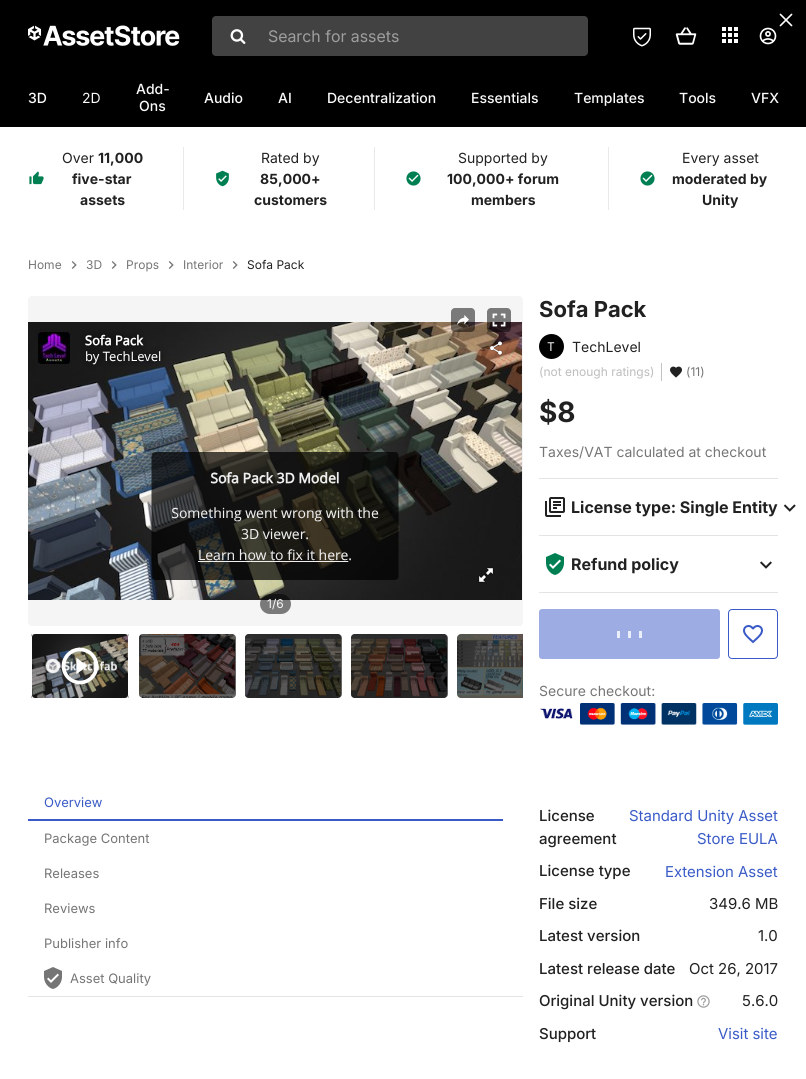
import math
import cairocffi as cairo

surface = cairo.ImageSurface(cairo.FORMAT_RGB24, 806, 1079)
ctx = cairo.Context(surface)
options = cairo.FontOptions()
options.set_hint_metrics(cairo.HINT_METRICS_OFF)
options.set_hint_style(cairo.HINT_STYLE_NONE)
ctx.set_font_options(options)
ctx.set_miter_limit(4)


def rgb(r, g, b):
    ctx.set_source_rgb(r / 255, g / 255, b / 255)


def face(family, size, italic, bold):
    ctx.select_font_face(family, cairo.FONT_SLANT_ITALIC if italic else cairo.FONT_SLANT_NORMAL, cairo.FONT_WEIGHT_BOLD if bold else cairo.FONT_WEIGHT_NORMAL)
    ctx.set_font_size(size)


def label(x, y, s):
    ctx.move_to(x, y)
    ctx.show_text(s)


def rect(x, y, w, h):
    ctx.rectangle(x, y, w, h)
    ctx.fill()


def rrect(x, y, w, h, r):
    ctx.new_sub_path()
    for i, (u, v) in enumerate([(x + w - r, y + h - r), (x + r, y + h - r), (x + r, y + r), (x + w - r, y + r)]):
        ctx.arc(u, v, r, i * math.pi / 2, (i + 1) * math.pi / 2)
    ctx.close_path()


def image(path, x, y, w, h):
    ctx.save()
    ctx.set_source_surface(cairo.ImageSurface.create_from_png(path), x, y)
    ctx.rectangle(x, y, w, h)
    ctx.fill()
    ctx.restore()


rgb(255, 255, 255)
ctx.paint()
rgb(0, 0, 0)
rect(0, 0, 806, 127)
image('image0.png', 779, 13, 14, 14)
image('image1.png', 28, 25, 152, 21)
rgb(66, 66, 66)
rrect(212, 16, 376, 40, 4)
ctx.fill()
image('image2.png', 230, 29, 16, 15)
face('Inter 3', 16, 0, 0)
rgb(158, 158, 158)
label(268, 42, 'Search for assets')
image('image3.png', 633, 27, 18, 20)
image('image4.png', 675, 27, 22, 18)
image('image5.png', 722, 27, 16, 16)
image('image6.png', 759, 27, 18, 18)
face('Inter Medium', 14, 0, 0)
rgb(250, 250, 250)
label(28, 103, '3D')
face('Inter', 14, 0, 0)
label(82, 103, '2D')
face('Inter Medium', 14, 0, 0)
label(136, 94, 'Add-')
label(139, 111, 'Ons')
label(204, 103, 'Audio')
label(278, 103, 'AI')
label(327, 103, 'Decentralization')
label(471, 103, 'Essentials')
label(574, 103, 'Templates')
label(679, 103, 'Tools')
label(751, 103, 'VFX')
image('image7.png', 29, 171, 15, 14)
face('Inter', 14, 0, 0)
rgb(33, 33, 33)
label(62, 163, 'Over')
face('Inter', 14, 0, 1)
label(98, 163, '11,000')
label(72, 184, 'five-star')
label(80, 205, 'assets')
rgb(233, 233, 233)
rect(374, 147, 1, 63)
rect(183, 147, 1, 63)
image('image8.png', 216, 170, 13, 17)
face('Inter', 14, 0, 0)
rgb(33, 33, 33)
label(261, 163, 'Rated by')
face('Inter', 14, 0, 1)
label(260, 184, '85,000+')
label(254, 205, 'customers')
rgb(233, 233, 233)
rect(608, 147, 1, 63)
image('image9.png', 406, 171, 15, 15)
face('Inter', 14, 0, 0)
rgb(33, 33, 33)
label(458, 163, 'Supported by')
face('Inter', 14, 0, 1)
label(447, 184, '100,000+ forum')
label(471, 205, 'members')
image('image9.png', 640, 171, 15, 15)
face('Inter', 14, 0, 0)
label(682, 163, 'Every asset')
face('Inter', 14, 0, 1)
label(672, 184, 'moderated by')
label(702, 205, 'Unity')
face('Inter', 12, 0, 0)
rgb(117, 117, 117)
label(28, 269, 'Home')
image('image10.png', 71, 261, 6, 8)
label(86, 269, '3D')
image('image10.png', 111, 261, 6, 8)
label(126, 269, 'Props')
image('image10.png', 168, 261, 6, 8)
label(183, 269, 'Interior')
image('image10.png', 232, 261, 6, 8)
rgb(33, 33, 33)
label(247, 269, 'Sofa Pack')
rgb(245, 245, 245)
rrect(28, 296, 495, 330, 4)
ctx.fill()
image('image13.png', 28, 322, 494, 278)
ctx.set_source_rgba(0, 0, 0, 0.5)
rrect(451, 308, 24, 24, 4)
ctx.fill()
image('image11.png', 457, 315, 12, 10)
rrect(487, 308, 24, 24, 4)
ctx.fill()
image('image12.png', 492, 313, 14, 14)
rrect(260, 594, 31, 20, 10)
ctx.fill()
rgb(250, 250, 250)
label(267, 608, '1/6')
image('image14.png', 31, 634, 98, 64)
rrect(31.5, 633.5, 97, 65, 3.5)
rgb(255, 255, 255)
ctx.set_line_width(1)
ctx.stroke()
image('image15.png', 61, 647, 38, 38)
image('image16.png', 139, 634, 96, 64)
ctx.set_source_rgba(0, 0, 0, 0.6)
rrect(139, 634, 97, 64, 4)
ctx.fill()
image('image17.png', 245, 634, 96, 64)
rrect(245, 634, 97, 64, 4)
ctx.fill()
image('image18.png', 351, 634, 96, 64)
rrect(351, 634, 97, 64, 4)
ctx.fill()
image('image19.png', 457, 634, 66, 64)
ctx.new_path()
ctx.move_to(461, 634)
ctx.line_to(523, 634)
ctx.line_to(523, 698)
ctx.line_to(461, 698)
ctx.curve_to(459, 698, 457, 696, 457, 694)
ctx.line_to(457, 638)
ctx.curve_to(457, 636, 459, 634, 461, 634)
ctx.close_path()
ctx.fill()
rgb(228, 228, 228)
rect(28, 996, 495, 1)
rgb(58, 91, 199)
rect(28, 819, 475, 2)
face('Inter', 13, 0, 0)
label(44, 807, 'Overview')
rgb(117, 117, 117)
label(44, 843, 'Package Content')
label(44, 878, 'Releases')
label(44, 913, 'Reviews')
label(44, 948, 'Publisher info')
image('image20.png', 44, 967, 18, 22)
label(70, 983, 'Asset Quality')
face('Inter', 22, 0, 1)
rgb(33, 33, 33)
label(539, 317, 'Sofa Pack')
rgb(0, 0, 0)
ctx.new_path()
ctx.arc(551.5, 346.5, 12.5, 0, 2 * math.pi)
ctx.fill()
face('Inter', 12, 0, 0)
rgb(250, 250, 250)
label(547, 351, 'T')
face('Inter', 14, 0, 0)
rgb(33, 33, 33)
label(572, 352, 'TechLevel')
face('Inter', 12, 0, 0)
rgb(189, 189, 189)
label(539, 376, '(not enough ratings)')
rgb(194, 194, 194)
rect(661, 363, 1, 18)
image('image21.png', 670, 366, 12, 12)
rgb(117, 117, 117)
label(686, 376, '(11)')
face('Inter', 28, 0, 1)
rgb(33, 33, 33)
label(539, 422, '$8')
face('Inter', 14, 0, 0)
rgb(117, 117, 117)
label(539, 457, 'Taxes/VAT calculated at checkout')
rgb(228, 228, 228)
rect(539, 478, 239, 1)
image('image22.png', 545, 497, 20, 20)
face('Inter', 16, 0, 1)
rgb(33, 33, 33)
label(571, 513, 'License type: Single Entity')
image('image23.png', 783, 504, 13, 8)
rgb(228, 228, 228)
rect(539, 535, 239, 1)
rect(539, 592, 239, 1)
image('image24.png', 546, 553, 18, 22)
rgb(33, 33, 33)
label(571, 570, 'Refund policy')
image('image25.png', 760, 561, 12, 8)
rgb(157, 173, 227)
rrect(539, 609, 181, 50, 3)
ctx.fill()
rgb(235, 239, 249)
rect(617, 631, 3, 7)
rect(628, 631, 3, 7)
rect(639, 631, 3, 7)
rrect(728.5, 609.5, 49, 49, 3.5)
rgb(58, 91, 199)
ctx.stroke()
image('image26.png', 743, 625, 20, 19)
face('Inter', 14, 0, 0)
rgb(117, 117, 117)
label(539, 696, 'Secure checkout:')
image('image27.png', 540, 703, 238, 22)
face('Inter Medium', 15, 0, 0)
rgb(33, 33, 33)
label(539, 821, 'License')
label(539, 844, 'agreement')
face('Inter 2', 15, 0, 0)
rgb(58, 91, 199)
label(629, 821, 'Standard Unity Asset')
label(697, 844, 'Store EULA')
face('Inter Medium', 15, 0, 0)
rgb(33, 33, 33)
label(539, 876, 'License type')
face('Inter 2', 15, 0, 0)
rgb(58, 91, 199)
label(665, 877, 'Extension Asset')
face('Inter Medium', 15, 0, 0)
rgb(33, 33, 33)
label(539, 909, 'File size')
face('Inter 2', 15, 0, 0)
label(709, 909, '349.6 MB')
face('Inter Medium', 15, 0, 0)
label(539, 941, 'Latest version')
face('Inter 2', 15, 0, 0)
label(758, 941, '1.0')
face('Inter Medium', 15, 0, 0)
label(539, 974, 'Latest release date')
face('Inter 2', 15, 0, 0)
label(689, 974, 'Oct 26, 2017')
face('Inter Medium', 15, 0, 0)
label(539, 1006, 'Original Unity version')
image('image28.png', 697, 995, 13, 13)
face('Inter 2', 15, 0, 0)
label(742, 1006, '5.6.0')
face('Inter Medium', 15, 0, 0)
label(539, 1039, 'Support')
face('Inter 2', 15, 0, 0)
rgb(58, 91, 199)
label(718, 1039, 'Visit site')
surface.write_to_png('render.png')
